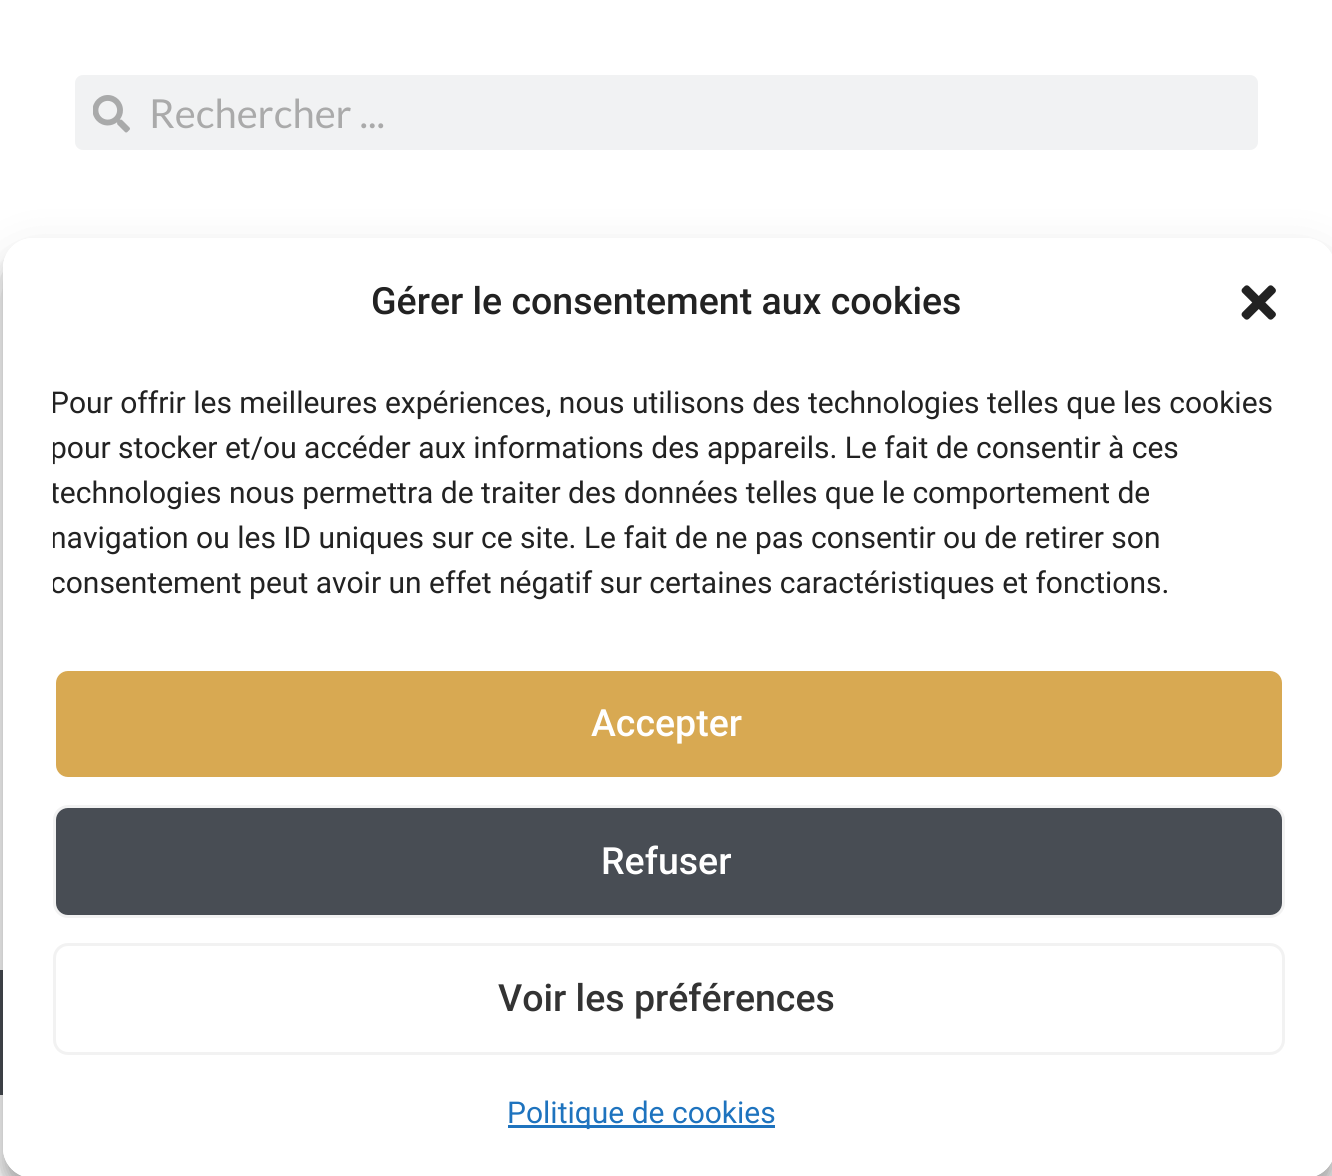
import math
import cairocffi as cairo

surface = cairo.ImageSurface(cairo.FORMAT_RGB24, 1332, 1176)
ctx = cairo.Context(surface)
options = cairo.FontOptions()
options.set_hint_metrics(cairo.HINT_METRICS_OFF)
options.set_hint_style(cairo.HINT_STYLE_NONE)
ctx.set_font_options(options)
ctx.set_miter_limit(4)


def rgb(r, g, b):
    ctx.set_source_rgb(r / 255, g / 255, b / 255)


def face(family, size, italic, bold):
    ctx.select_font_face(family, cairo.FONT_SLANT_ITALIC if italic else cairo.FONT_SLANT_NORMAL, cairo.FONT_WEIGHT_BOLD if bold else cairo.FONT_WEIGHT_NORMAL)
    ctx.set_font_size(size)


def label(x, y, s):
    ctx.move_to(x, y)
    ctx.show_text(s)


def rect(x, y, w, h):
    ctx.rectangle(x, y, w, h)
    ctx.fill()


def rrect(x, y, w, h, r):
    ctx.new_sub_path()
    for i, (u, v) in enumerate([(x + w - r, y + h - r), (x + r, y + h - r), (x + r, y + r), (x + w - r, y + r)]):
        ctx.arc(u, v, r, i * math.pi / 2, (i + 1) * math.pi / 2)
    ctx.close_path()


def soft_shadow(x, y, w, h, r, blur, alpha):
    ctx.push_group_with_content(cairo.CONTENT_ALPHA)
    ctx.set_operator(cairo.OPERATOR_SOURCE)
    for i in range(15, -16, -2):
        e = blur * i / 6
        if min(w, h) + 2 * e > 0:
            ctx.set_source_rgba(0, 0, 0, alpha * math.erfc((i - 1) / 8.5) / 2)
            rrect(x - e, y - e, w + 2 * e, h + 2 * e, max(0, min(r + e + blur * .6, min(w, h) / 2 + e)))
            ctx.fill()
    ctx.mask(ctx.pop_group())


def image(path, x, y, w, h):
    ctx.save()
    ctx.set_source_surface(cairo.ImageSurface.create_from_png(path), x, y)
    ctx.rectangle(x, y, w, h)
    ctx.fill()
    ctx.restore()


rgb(255, 255, 255)
ctx.paint()
rgb(241, 242, 243)
rrect(75, 75, 1183, 75, 8)
ctx.fill()
image('image0.png', 93, 95, 37, 38)
face('Lato', 40, 0, 0)
rgb(170, 170, 170)
label(149, 128, 'Rechercher ...')
rgb(72, 77, 84)
rect(0, 970, 3, 125)
ctx.save()
ctx.set_fill_rule(cairo.FILL_RULE_EVEN_ODD)
ctx.new_path()
ctx.move_to(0, 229)
ctx.line_to(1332, 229)
ctx.line_to(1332, 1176)
ctx.line_to(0, 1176)
ctx.close_path()
ctx.move_to(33, 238)
ctx.line_to(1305, 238)
ctx.curve_to(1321.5, 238, 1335, 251.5, 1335, 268)
ctx.line_to(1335, 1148)
ctx.curve_to(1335, 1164.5, 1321.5, 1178, 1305, 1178)
ctx.line_to(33, 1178)
ctx.curve_to(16.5, 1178, 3, 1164.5, 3, 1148)
ctx.line_to(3, 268)
ctx.curve_to(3, 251.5, 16.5, 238, 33, 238)
ctx.close_path()
ctx.clip()
rgb(0, 0, 0)
soft_shadow(3, 253, 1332, 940, 30, 7.5, 0.23)
ctx.restore()
ctx.save()
ctx.set_fill_rule(cairo.FILL_RULE_EVEN_ODD)
ctx.new_path()
ctx.move_to(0, 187)
ctx.line_to(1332, 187)
ctx.line_to(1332, 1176)
ctx.line_to(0, 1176)
ctx.close_path()
ctx.move_to(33, 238)
ctx.line_to(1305, 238)
ctx.curve_to(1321.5, 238, 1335, 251.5, 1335, 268)
ctx.line_to(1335, 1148)
ctx.curve_to(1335, 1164.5, 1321.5, 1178, 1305, 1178)
ctx.line_to(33, 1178)
ctx.curve_to(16.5, 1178, 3, 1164.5, 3, 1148)
ctx.line_to(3, 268)
ctx.curve_to(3, 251.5, 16.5, 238, 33, 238)
ctx.close_path()
ctx.clip()
rgb(0, 0, 0)
soft_shadow(3, 263, 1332, 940, 30, 25, 0.19)
ctx.restore()
rgb(255, 255, 255)
rrect(3, 238, 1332, 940, 30)
ctx.fill()
face('Roboto Medium', 37.5, 0, 0)
rgb(34, 34, 34)
label(371, 314, 'Gérer le consentement aux cookies')
image('image1.png', 1241, 285, 35, 35)
ctx.save()
ctx.rectangle(53, 380, 1232, 238)
ctx.clip()
face('Roboto', 30, 0, 0)
label(50, 413, 'Pour offrir les meilleures expériences, nous utilisons des technologies telles que les cookies')
label(50, 458, 'pour stocker et/ou accéder aux informations des appareils. Le fait de consentir à ces')
label(50, 503, 'technologies nous permettra de traiter des données telles que le comportement de')
label(50, 548, 'navigation ou les ID uniques sur ce site. Le fait de ne pas consentir ou de retirer son')
label(50, 593, 'consentement peut avoir un effet négatif sur certaines caractéristiques et fonctions.')
ctx.restore()
rgb(216, 169, 82)
rrect(54.5, 669.5, 1229, 109, 13.5)
ctx.fill_preserve()
rgb(255, 255, 255)
ctx.set_line_width(3)
ctx.stroke()
label(591, 736, 'Accepter')
rgb(72, 77, 84)
rrect(54.5, 806.5, 1229, 110, 13.5)
ctx.fill_preserve()
rgb(242, 242, 242)
ctx.stroke()
rgb(255, 255, 255)
label(601, 874, 'Refuser')
rrect(54.5, 944.5, 1229, 109, 13.5)
rgb(242, 242, 242)
ctx.stroke()
rgb(51, 51, 51)
label(498, 1011, 'Voir les préférences')
rgb(30, 115, 190)
rect(508, 1125, 267, 3)
face('Roboto', 30, 0, 0)
label(507, 1123, 'Politique de cookies')
surface.write_to_png('render.png')
